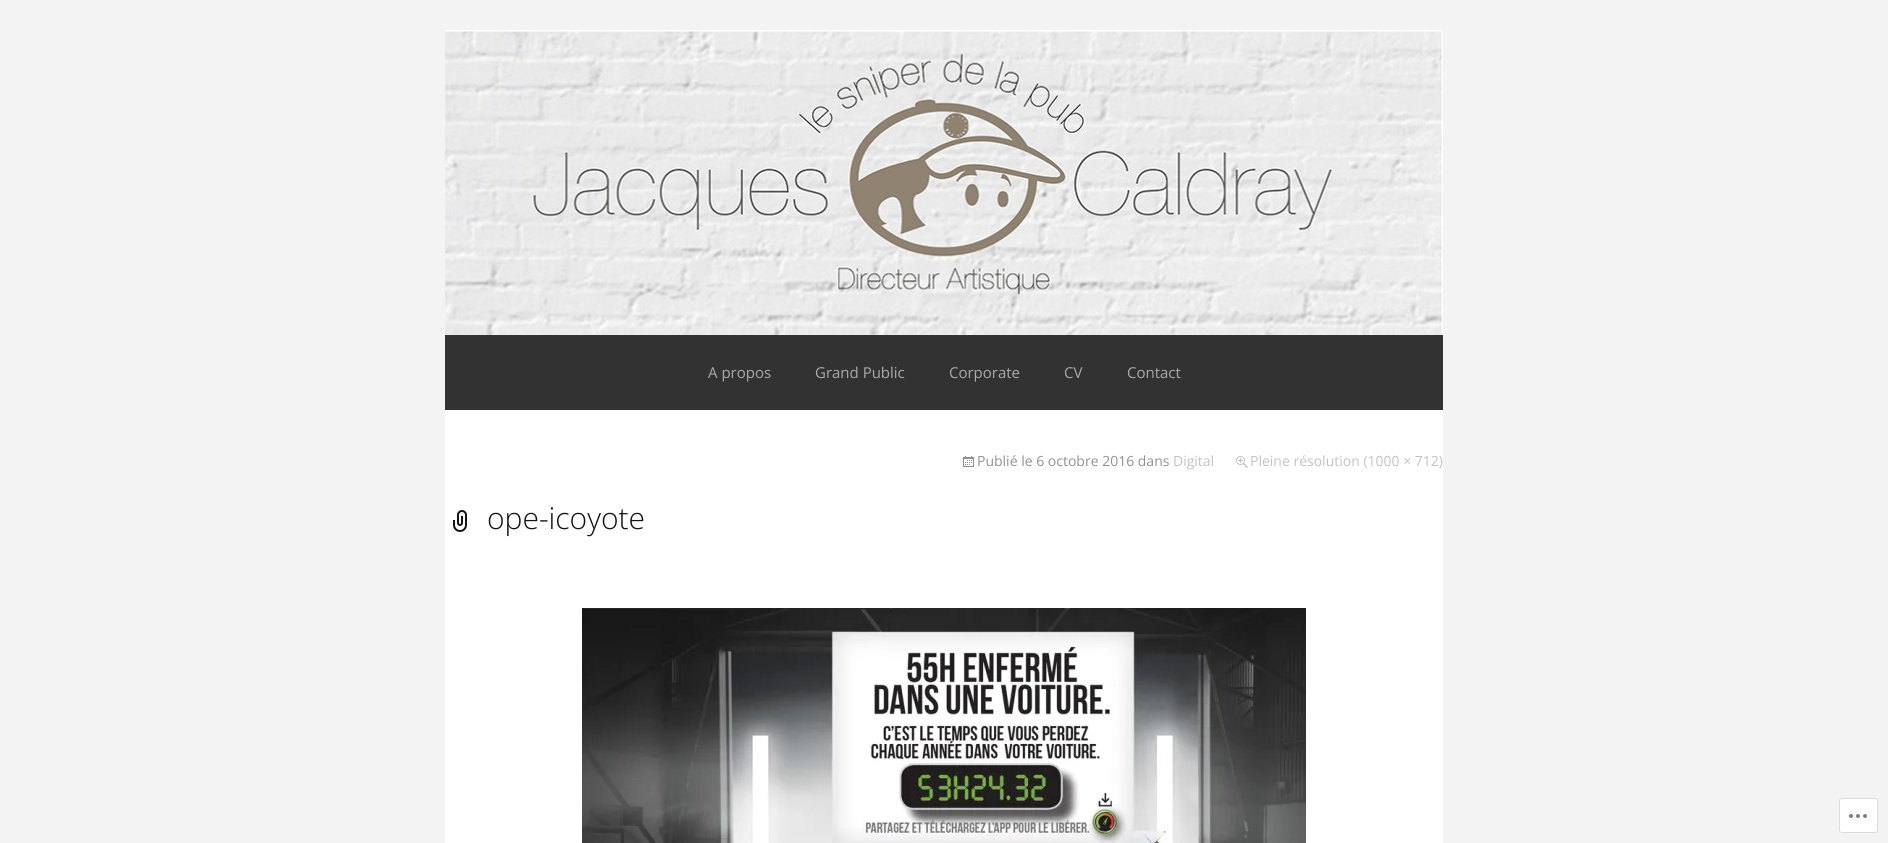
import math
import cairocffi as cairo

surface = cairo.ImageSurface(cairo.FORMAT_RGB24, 1888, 843)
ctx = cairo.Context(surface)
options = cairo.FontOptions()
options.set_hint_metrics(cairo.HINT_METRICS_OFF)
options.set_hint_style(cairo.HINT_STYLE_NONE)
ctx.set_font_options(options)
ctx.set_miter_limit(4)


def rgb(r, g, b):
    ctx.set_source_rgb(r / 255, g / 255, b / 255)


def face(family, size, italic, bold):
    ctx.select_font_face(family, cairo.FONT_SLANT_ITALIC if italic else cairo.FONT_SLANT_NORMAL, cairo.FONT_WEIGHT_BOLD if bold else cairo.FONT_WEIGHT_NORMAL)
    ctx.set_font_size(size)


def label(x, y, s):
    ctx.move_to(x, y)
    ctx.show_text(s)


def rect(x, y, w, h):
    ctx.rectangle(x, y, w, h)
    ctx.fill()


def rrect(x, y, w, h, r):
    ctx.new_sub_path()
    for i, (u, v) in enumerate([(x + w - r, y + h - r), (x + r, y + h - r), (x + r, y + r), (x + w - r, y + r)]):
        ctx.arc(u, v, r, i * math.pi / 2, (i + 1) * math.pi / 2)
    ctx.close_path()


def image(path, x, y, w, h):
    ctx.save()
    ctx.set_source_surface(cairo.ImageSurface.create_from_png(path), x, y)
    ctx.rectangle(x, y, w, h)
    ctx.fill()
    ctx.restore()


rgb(243, 243, 243)
ctx.paint()
image('image0.png', 445, 30, 998, 305)
rgb(50, 50, 50)
rect(445, 335, 998, 75)
face('Open Sans', 15, 0, 0)
rgb(170, 170, 170)
label(708, 378, 'A propos')
label(815, 378, 'Grand Public')
label(949, 378, 'Corporate')
label(1064, 378, 'CV')
label(1127, 378, 'Contact')
rgb(255, 255, 255)
rect(445, 410, 998, 433)
image('image1.png', 963, 456, 11, 11)
face('Open Sans', 14, 0, 0)
rgb(145, 145, 145)
label(977, 466, 'Publié le 6 octobre 2016 dans')
rgb(195, 195, 195)
label(1173, 466, 'Digital')
image('image2.png', 1236, 456, 12, 12)
label(1250, 466, 'Pleine résolution (1000 × 712)')
image('image3.png', 453, 510, 14, 22)
face('Open Sans Light', 30, 0, 0)
rgb(20, 20, 20)
label(487, 529, 'ope-icoyote')
image('image4.png', 582, 608, 724, 235)
rgb(255, 255, 255)
rrect(1839.5, 798.5, 38, 34, 2.5)
ctx.fill_preserve()
rgb(220, 220, 222)
ctx.set_line_width(1)
ctx.stroke()
image('image5.png', 1849, 814, 18, 4)
surface.write_to_png('render.png')
